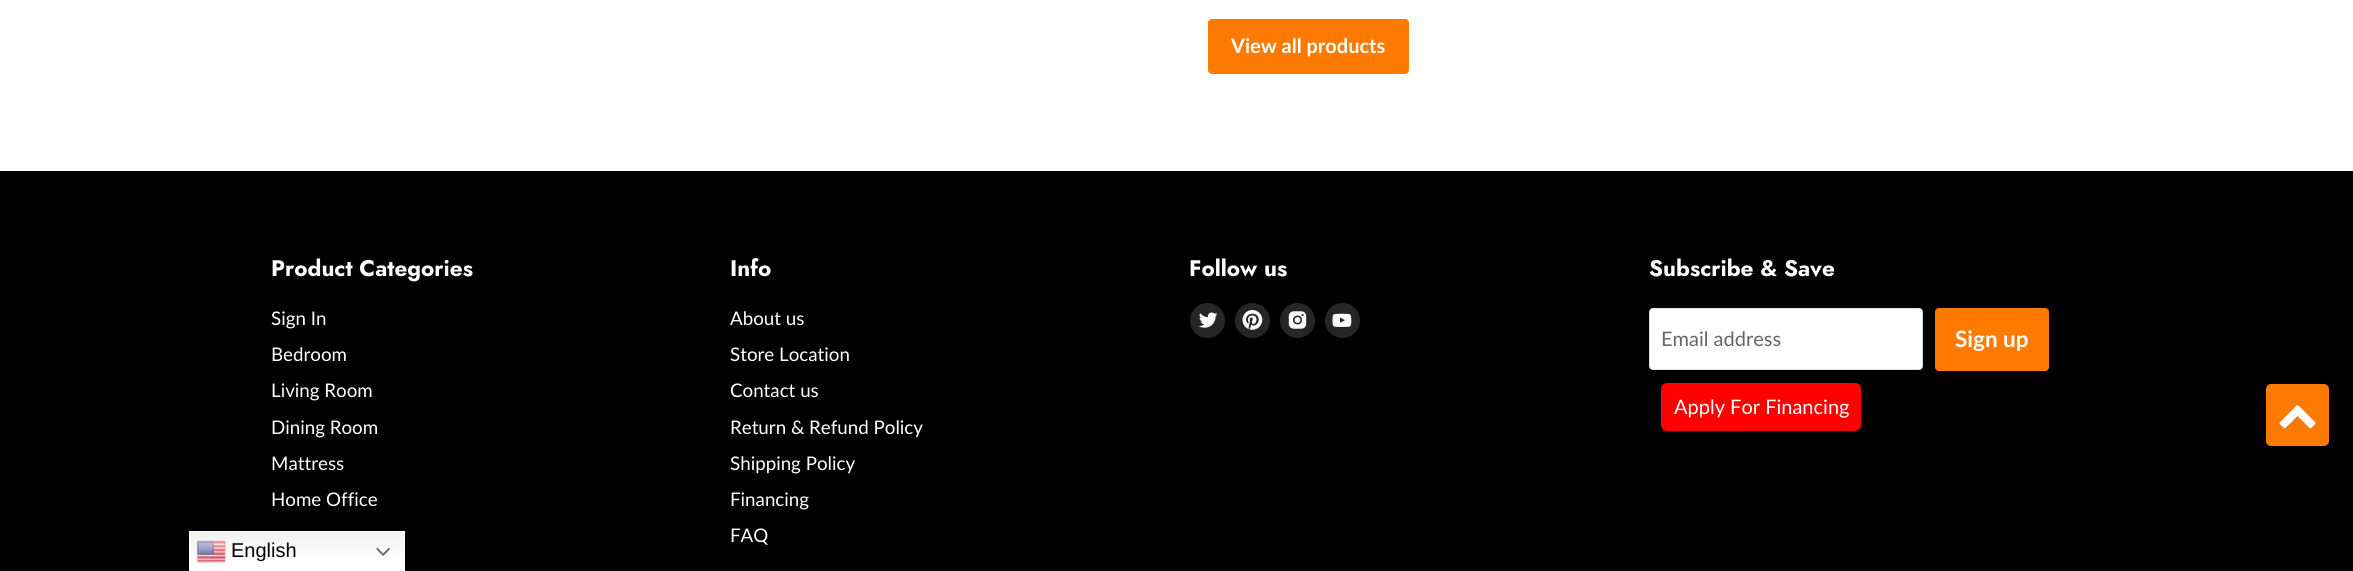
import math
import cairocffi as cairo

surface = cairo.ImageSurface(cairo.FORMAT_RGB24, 2353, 571)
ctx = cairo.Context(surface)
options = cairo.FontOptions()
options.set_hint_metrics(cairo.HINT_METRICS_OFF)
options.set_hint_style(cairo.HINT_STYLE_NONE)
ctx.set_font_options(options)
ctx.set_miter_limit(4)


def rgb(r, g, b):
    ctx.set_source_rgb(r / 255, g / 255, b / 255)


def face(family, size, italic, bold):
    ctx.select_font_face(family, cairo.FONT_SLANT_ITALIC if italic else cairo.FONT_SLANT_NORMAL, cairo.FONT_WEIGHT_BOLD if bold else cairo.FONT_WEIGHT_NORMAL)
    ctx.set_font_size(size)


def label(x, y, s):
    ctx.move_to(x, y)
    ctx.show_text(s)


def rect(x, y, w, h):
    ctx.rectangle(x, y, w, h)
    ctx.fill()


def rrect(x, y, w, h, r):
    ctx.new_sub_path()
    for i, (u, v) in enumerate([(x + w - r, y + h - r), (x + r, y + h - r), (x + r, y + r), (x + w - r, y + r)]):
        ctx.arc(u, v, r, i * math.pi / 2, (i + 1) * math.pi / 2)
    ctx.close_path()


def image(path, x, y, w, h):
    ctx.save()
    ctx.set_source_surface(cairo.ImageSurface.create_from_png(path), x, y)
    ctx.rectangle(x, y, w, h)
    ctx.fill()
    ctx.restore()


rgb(255, 255, 255)
ctx.paint()
rgb(255, 122, 0)
rrect(1208.5, 19.5, 200, 54, 3.5)
ctx.fill_preserve()
ctx.set_line_width(1)
ctx.stroke()
face('Lato', 20, 0, 1)
rgb(255, 255, 255)
label(1231, 53, 'View all products')
rgb(0, 0, 0)
rect(0, 171, 2353, 400)
face('Jost', 22.5, 0, 1)
rgb(255, 255, 255)
label(271, 276, 'Product Categories')
face('Lato', 18.75, 0, 0)
label(271, 325, 'Sign In')
label(271, 361, 'Bedroom')
label(271, 397, 'Living Room')
label(271, 434, 'Dining Room')
label(271, 470, 'Mattress')
label(271, 506, 'Home Office')
face('Jost', 22.5, 0, 1)
label(730, 276, 'Info')
face('Lato', 18.75, 0, 0)
label(730, 325, 'About us')
label(730, 361, 'Store Location')
label(730, 397, 'Contact us')
label(730, 434, 'Return & Refund Policy')
label(730, 470, 'Shipping Policy')
label(730, 506, 'Financing')
label(730, 542, 'FAQ')
face('Jost', 22.5, 0, 1)
label(1189, 276, 'Follow us')
rgb(38, 38, 38)
ctx.new_path()
ctx.arc(1207.5, 320.5, 17.5, 0, 2 * math.pi)
ctx.fill()
image('image0.png', 1199, 312, 19, 16)
ctx.arc(1252.5, 320.5, 17.5, 0, 2 * math.pi)
ctx.fill()
image('image1.png', 1242, 310, 21, 20)
ctx.arc(1297.5, 320.5, 17.5, 0, 2 * math.pi)
ctx.fill()
image('image2.png', 1288, 311, 19, 18)
ctx.arc(1342.5, 320.5, 17.5, 0, 2 * math.pi)
ctx.fill()
image('image3.png', 1332, 313, 20, 14)
rgb(255, 255, 255)
label(1649, 276, 'Subscribe & Save')
rrect(1649.5, 308.5, 273, 61, 3.5)
ctx.fill_preserve()
rgb(221, 221, 221)
ctx.stroke()
face('Lato', 20, 0, 0)
rgb(102, 102, 102)
label(1661, 346, 'Email address')
rgb(255, 122, 0)
rrect(1935.5, 308.5, 113, 62, 3.5)
ctx.fill_preserve()
ctx.stroke()
face('Lato', 22.5, 0, 1)
rgb(255, 255, 255)
label(1955, 347, 'Sign up')
rgb(255, 0, 0)
rrect(1661, 383, 200, 48, 6)
ctx.fill()
face('Lato', 20, 0, 0)
rgb(255, 255, 255)
label(1674, 414, 'Apply For Financing')
rgb(255, 122, 0)
rrect(2266, 384, 63, 62, 5)
ctx.fill()
image('image4.png', 2279, 405, 37, 24)
gradient = cairo.LinearGradient(297, 531, 297, 571)
gradient.add_color_stop_rgba(0, 0.937, 0.937, 0.937, 1)
gradient.add_color_stop_rgba(0.7, 1, 1, 1, 1)
ctx.set_source(gradient)
rect(190, 532, 214, 38)
ctx.rectangle(189.5, 531.5, 215, 39)
rgb(255, 255, 255)
ctx.stroke()
image('image5.png', 196, 540, 31, 24)
face('Liberation Sans', 20, 0, 0)
rgb(0, 0, 0)
label(231, 557, 'English')
image('image6.png', 376, 547, 14, 9)
surface.write_to_png('render.png')
